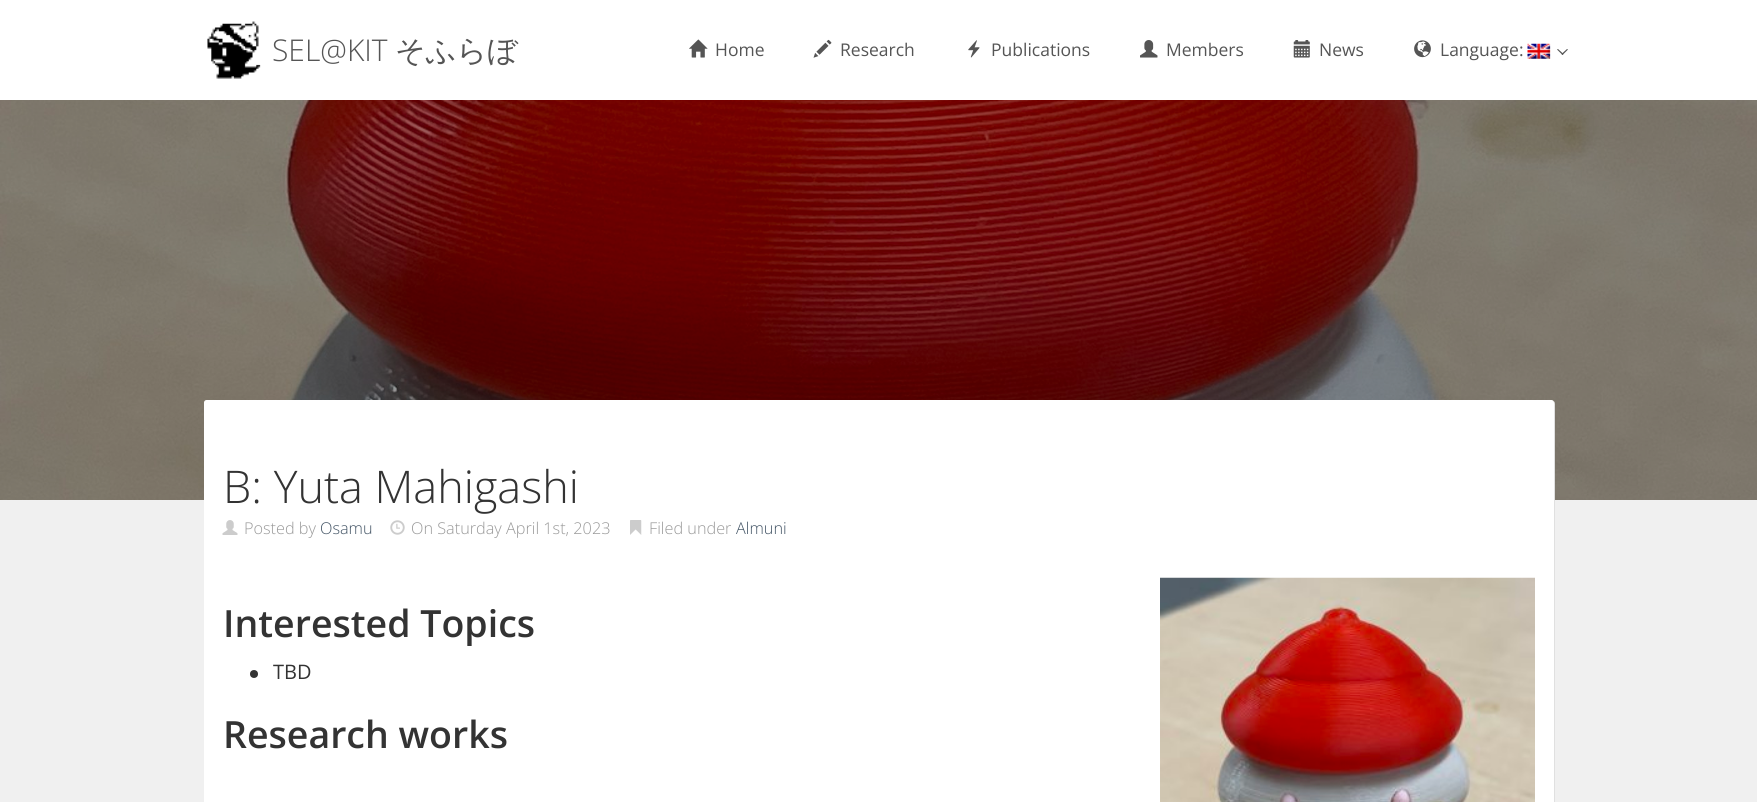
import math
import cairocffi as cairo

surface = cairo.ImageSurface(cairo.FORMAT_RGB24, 1757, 802)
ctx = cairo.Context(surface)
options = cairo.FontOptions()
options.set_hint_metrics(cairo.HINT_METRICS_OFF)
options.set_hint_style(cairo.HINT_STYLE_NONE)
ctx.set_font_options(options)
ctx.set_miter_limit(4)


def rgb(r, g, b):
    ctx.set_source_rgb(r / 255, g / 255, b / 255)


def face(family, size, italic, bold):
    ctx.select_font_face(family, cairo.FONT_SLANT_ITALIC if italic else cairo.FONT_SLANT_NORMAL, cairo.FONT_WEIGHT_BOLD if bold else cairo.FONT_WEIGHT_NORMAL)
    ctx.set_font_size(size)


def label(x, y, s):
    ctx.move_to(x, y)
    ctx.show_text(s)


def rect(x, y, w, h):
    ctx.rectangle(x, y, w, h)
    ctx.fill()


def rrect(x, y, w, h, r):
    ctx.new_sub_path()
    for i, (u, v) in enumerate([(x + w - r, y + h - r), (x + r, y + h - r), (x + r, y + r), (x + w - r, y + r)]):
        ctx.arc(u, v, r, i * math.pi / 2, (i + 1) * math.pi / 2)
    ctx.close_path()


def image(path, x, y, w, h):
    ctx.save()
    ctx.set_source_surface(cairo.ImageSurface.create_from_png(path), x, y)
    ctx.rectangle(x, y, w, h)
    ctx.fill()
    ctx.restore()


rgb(240, 240, 240)
ctx.paint()
rgb(255, 255, 255)
rect(0, 0, 1757, 100)
image('image0.png', 207, 21, 54, 58)
face('Open Sans Light', 30, 0, 0)
rgb(85, 85, 85)
label(272, 61, 'SEL@KIT')
face('WenQuanYi Zen Hei Medium', 30, 0, 0)
label(395, 61, 'そふらぼ')
image('image1.png', 689, 39, 19, 19)
face('Open Sans', 17.5, 0, 0)
label(715, 56, 'Home')
image('image2.png', 813, 39, 19, 19)
label(840, 56, 'Research')
image('image3.png', 968, 40, 12, 18)
label(991, 56, 'Publications')
image('image4.png', 1140, 40, 18, 18)
label(1166, 56, 'Members')
image('image5.png', 1293, 40, 17, 18)
label(1319, 56, 'News')
image('image6.png', 1414, 40, 17, 18)
label(1440, 56, 'Language:')
image('image7.png', 1527, 43, 24, 16)
ctx.new_path()
ctx.move_to(1567, 49)
ctx.line_to(1568, 49.5)
ctx.line_to(1562.5, 55)
ctx.line_to(1561.5, 54)
ctx.close_path()
ctx.fill()
ctx.new_path()
ctx.move_to(1558, 49)
ctx.line_to(1563.5, 54)
ctx.line_to(1562.5, 55)
ctx.line_to(1557, 49.5)
ctx.close_path()
ctx.fill()
image('image8.png', 0, 100, 1757, 400)
rgb(224, 224, 224)
ctx.new_path()
ctx.move_to(205, 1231)
ctx.curve_to(205, 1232, 206, 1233, 208, 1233)
ctx.line_to(1552, 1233)
ctx.curve_to(1554, 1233, 1555, 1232, 1555, 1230)
ctx.line_to(1555, 404)
ctx.curve_to(1555, 402, 1554, 401, 1553, 401)
ctx.line_to(1554, 402)
ctx.line_to(1554, 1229)
ctx.curve_to(1554, 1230, 1553, 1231, 1551, 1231)
ctx.close_path()
ctx.fill()
rgb(255, 255, 255)
rrect(204, 400, 1350, 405, 2.5)
ctx.fill()
face('Open Sans Light', 45, 0, 0)
rgb(51, 51, 51)
label(223, 503, 'B: Yuta Mahigashi')
image('image9.png', 222, 520, 16, 15)
face('Open Sans Light', 16.25, 0, 0)
rgb(153, 153, 153)
label(244, 534, 'Posted by')
rgb(68, 85, 102)
label(320, 534, 'Osamu')
image('image10.png', 390, 520, 15, 15)
rgb(153, 153, 153)
label(411, 534, 'On Saturday April 1st, 2023')
image('image11.png', 630, 520, 12, 15)
label(649, 534, 'Filed under')
rgb(68, 85, 102)
label(736, 534, 'Almuni')
face('Open Sans SemiBold', 37.5, 0, 0)
rgb(51, 51, 51)
label(223, 637, 'Interested Topics')
image('image12.png', 1160, 577, 375, 225)
ctx.arc(254, 674, 4, 0, 2 * math.pi)
ctx.fill()
face('Open Sans', 20, 0, 0)
label(273, 679, 'TBD')
face('Open Sans SemiBold', 37.5, 0, 0)
label(223, 748, 'Research works')
surface.write_to_png('render.png')
